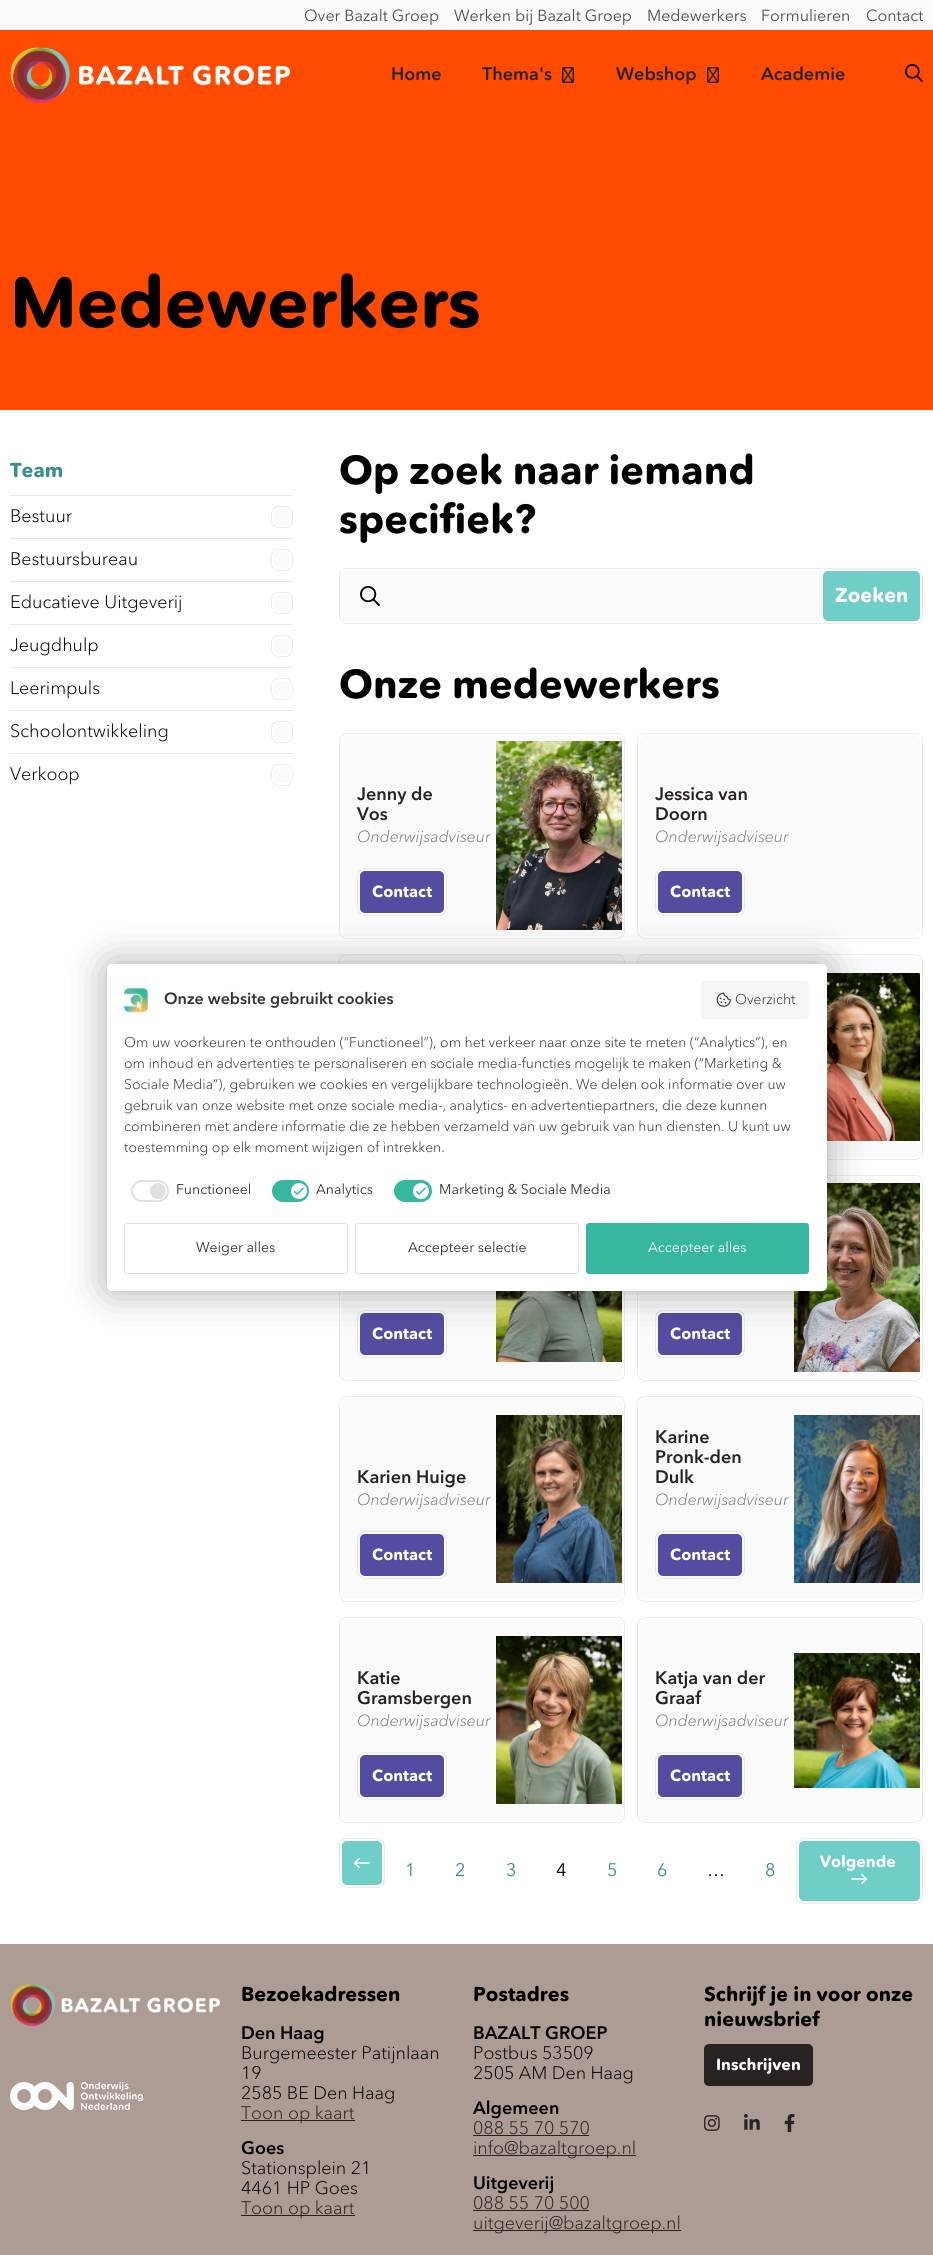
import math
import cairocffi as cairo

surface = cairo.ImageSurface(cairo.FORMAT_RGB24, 933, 2255)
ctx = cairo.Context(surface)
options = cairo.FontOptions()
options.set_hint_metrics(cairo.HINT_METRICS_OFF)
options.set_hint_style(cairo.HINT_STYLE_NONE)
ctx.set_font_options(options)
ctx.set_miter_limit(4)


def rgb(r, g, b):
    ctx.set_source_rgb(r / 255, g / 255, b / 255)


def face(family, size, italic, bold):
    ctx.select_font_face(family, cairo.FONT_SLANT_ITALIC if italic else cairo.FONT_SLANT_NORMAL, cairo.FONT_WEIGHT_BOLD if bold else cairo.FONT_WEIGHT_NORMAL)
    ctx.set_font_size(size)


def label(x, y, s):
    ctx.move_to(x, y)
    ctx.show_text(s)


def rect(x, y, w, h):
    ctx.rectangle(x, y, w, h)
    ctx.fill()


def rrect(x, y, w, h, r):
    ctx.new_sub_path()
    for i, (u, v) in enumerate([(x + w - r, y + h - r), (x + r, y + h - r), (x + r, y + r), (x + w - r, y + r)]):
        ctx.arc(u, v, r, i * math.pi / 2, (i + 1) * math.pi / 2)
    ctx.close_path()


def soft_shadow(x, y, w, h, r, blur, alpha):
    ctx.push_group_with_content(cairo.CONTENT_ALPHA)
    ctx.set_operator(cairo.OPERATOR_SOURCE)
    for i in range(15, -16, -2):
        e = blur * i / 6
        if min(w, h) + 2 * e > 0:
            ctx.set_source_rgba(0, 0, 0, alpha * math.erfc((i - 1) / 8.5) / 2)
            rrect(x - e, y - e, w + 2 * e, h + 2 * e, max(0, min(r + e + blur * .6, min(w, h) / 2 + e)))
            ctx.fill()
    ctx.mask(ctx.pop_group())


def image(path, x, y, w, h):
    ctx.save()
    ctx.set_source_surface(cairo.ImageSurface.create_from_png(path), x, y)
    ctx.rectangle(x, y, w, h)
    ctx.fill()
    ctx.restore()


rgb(255, 255, 255)
ctx.paint()
rgb(251, 250, 250)
rect(0, 0, 933, 30)
face('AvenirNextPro', 16, 0, 0)
rgb(82, 78, 76)
label(304, 21, 'Over Bazalt Groep')
label(454, 21, 'Werken bij Bazalt Groep')
label(647, 21, 'Medewerkers')
label(761, 21, 'Formulieren')
label(866, 21, 'Contact')
rgb(255, 74, 0)
rect(0, 30, 933, 380)
image('image0.png', 10, 47, 280, 56)
face('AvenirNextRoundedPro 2', 18, 0, 0)
rgb(40, 35, 33)
label(391, 80, 'Home')
label(482, 80, 'Thema\'s')
image('image1.png', 562, 67, 12, 16)
label(616, 80, 'Webshop')
image('image1.png', 707, 67, 12, 16)
label(761, 80, 'Academie')
image('image2.png', 905, 64, 18, 18)
face('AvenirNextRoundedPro', 70, 0, 0)
rgb(0, 0, 0)
label(10, 327, 'Medewerkers')
face('AvenirNextRoundedPro', 20, 0, 0)
rgb(54, 143, 138)
label(10, 477, 'Team')
rgb(234, 233, 233)
rect(10, 495, 283, 1)
face('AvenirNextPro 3', 18, 0, 0)
rgb(0, 0, 0)
label(10, 522, 'Bestuur')
rrect(271.5, 506.5, 21, 21, 7.5)
rgb(239, 235, 233)
ctx.set_line_width(1)
ctx.stroke()
rgb(251, 250, 250)
rrect(274, 509, 16, 16, 5)
ctx.fill()
rgb(234, 233, 233)
rect(10, 538, 283, 1)
rgb(0, 0, 0)
label(10, 565, 'Bestuursbureau')
rrect(271.5, 549.5, 21, 21, 7.5)
rgb(239, 235, 233)
ctx.stroke()
rgb(251, 250, 250)
rrect(274, 552, 16, 16, 5)
ctx.fill()
rgb(234, 233, 233)
rect(10, 581, 283, 1)
rgb(0, 0, 0)
label(10, 608, 'Educatieve Uitgeverij')
rrect(271.5, 592.5, 21, 21, 7.5)
rgb(239, 235, 233)
ctx.stroke()
rgb(251, 250, 250)
rrect(274, 595, 16, 16, 5)
ctx.fill()
rgb(234, 233, 233)
rect(10, 624, 283, 1)
rgb(0, 0, 0)
label(10, 651, 'Jeugdhulp')
rrect(271.5, 635.5, 21, 21, 7.5)
rgb(239, 235, 233)
ctx.stroke()
rgb(251, 250, 250)
rrect(274, 638, 16, 16, 5)
ctx.fill()
rgb(234, 233, 233)
rect(10, 667, 283, 1)
rgb(0, 0, 0)
label(10, 694, 'Leerimpuls')
rrect(271.5, 678.5, 21, 21, 7.5)
rgb(239, 235, 233)
ctx.stroke()
rgb(251, 250, 250)
rrect(274, 681, 16, 16, 5)
ctx.fill()
rgb(234, 233, 233)
rect(10, 710, 283, 1)
rgb(0, 0, 0)
label(10, 737, 'Schoolontwikkeling')
rrect(271.5, 721.5, 21, 21, 7.5)
rgb(239, 235, 233)
ctx.stroke()
rgb(251, 250, 250)
rrect(274, 724, 16, 16, 5)
ctx.fill()
rgb(234, 233, 233)
rect(10, 753, 283, 1)
rgb(0, 0, 0)
label(10, 780, 'Verkoop')
rrect(271.5, 764.5, 21, 21, 7.5)
rgb(239, 235, 233)
ctx.stroke()
rgb(251, 250, 250)
rrect(274, 767, 16, 16, 5)
ctx.fill()
face('AvenirNextRoundedPro', 40, 0, 0)
rgb(0, 0, 0)
label(339, 484, 'Op zoek naar iemand')
label(339, 533, 'specifiek?')
rrect(339.5, 568.5, 583, 55, 7.5)
rgb(239, 235, 233)
ctx.stroke()
rgb(251, 250, 250)
rect(342, 571, 481, 50)
image('image3.png', 360, 586, 20, 20)
rgb(112, 206, 201)
rrect(823, 571, 97, 50, 5)
ctx.fill()
face('AvenirNextRoundedPro', 20, 0, 0)
rgb(255, 255, 255)
label(835, 602, 'Zoeken')
face('AvenirNextRoundedPro', 40, 0, 0)
rgb(0, 0, 0)
label(339, 698, 'Onze medewerkers')
rrect(339.5, 733.5, 285, 205, 7.5)
rgb(239, 235, 233)
ctx.stroke()
rgb(251, 250, 250)
rrect(342, 736, 280, 200, 5)
ctx.fill()
image('image4.png', 496, 741, 126, 189)
face('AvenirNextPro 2', 18, 0, 0)
rgb(40, 35, 33)
label(357, 800, 'Jenny de')
label(357, 820, 'Vos')
face('AvenirNextPro', 16, 1, 0)
rgb(124, 121, 120)
label(357, 842, 'Onderwijsadviseur')
rrect(357.5, 868.5, 89, 47, 7.5)
rgb(235, 231, 229)
ctx.stroke()
rgb(84, 76, 161)
rrect(360, 871, 84, 42, 5)
ctx.fill()
face('AvenirNextRoundedPro', 16, 0, 0)
rgb(255, 255, 255)
label(372, 897, 'Contact')
rrect(637.5, 733.5, 285, 205, 7.5)
rgb(239, 235, 233)
ctx.stroke()
rgb(251, 250, 250)
rrect(640, 736, 280, 200, 5)
ctx.fill()
face('AvenirNextPro 2', 18, 0, 0)
rgb(40, 35, 33)
label(655, 800, 'Jessica van')
label(655, 820, 'Doorn')
face('AvenirNextPro', 16, 1, 0)
rgb(124, 121, 120)
label(655, 842, 'Onderwijsadviseur')
rrect(655.5, 868.5, 89, 47, 7.5)
rgb(235, 231, 229)
ctx.stroke()
rgb(84, 76, 161)
rrect(658, 871, 84, 42, 5)
ctx.fill()
face('AvenirNextRoundedPro', 16, 0, 0)
rgb(255, 255, 255)
label(670, 897, 'Contact')
rrect(339.5, 954.5, 285, 205, 7.5)
rgb(239, 235, 233)
ctx.stroke()
rgb(251, 250, 250)
rrect(342, 957, 280, 200, 5)
ctx.fill()
rrect(637.5, 954.5, 285, 205, 7.5)
rgb(239, 235, 233)
ctx.stroke()
rgb(251, 250, 250)
rrect(640, 957, 280, 200, 5)
ctx.fill()
image('image5.png', 827, 973, 93, 168)
rrect(339.5, 1175.5, 285, 205, 7.5)
rgb(239, 235, 233)
ctx.stroke()
rgb(251, 250, 250)
rrect(342, 1178, 280, 200, 5)
ctx.fill()
image('image6.png', 496, 1291, 126, 71)
rrect(357.5, 1310.5, 89, 47, 7.5)
rgb(235, 231, 229)
ctx.stroke()
rgb(84, 76, 161)
rrect(360, 1313, 84, 42, 5)
ctx.fill()
rgb(255, 255, 255)
label(372, 1339, 'Contact')
rrect(637.5, 1175.5, 285, 205, 7.5)
rgb(239, 235, 233)
ctx.stroke()
rgb(251, 250, 250)
rrect(640, 1178, 280, 200, 5)
ctx.fill()
image('image7.png', 794, 1183, 126, 189)
rrect(655.5, 1310.5, 89, 47, 7.5)
rgb(235, 231, 229)
ctx.stroke()
rgb(84, 76, 161)
rrect(658, 1313, 84, 42, 5)
ctx.fill()
rgb(255, 255, 255)
label(670, 1339, 'Contact')
rrect(339.5, 1396.5, 285, 205, 7.5)
rgb(239, 235, 233)
ctx.stroke()
rgb(251, 250, 250)
rrect(342, 1399, 280, 200, 5)
ctx.fill()
image('image8.png', 496, 1415, 126, 168)
face('AvenirNextPro 2', 18, 0, 0)
rgb(40, 35, 33)
label(357, 1483, 'Karien Huige')
face('AvenirNextPro', 16, 1, 0)
rgb(124, 121, 120)
label(357, 1505, 'Onderwijsadviseur')
rrect(357.5, 1531.5, 89, 47, 7.5)
rgb(235, 231, 229)
ctx.stroke()
rgb(84, 76, 161)
rrect(360, 1534, 84, 42, 5)
ctx.fill()
face('AvenirNextRoundedPro', 16, 0, 0)
rgb(255, 255, 255)
label(372, 1560, 'Contact')
rrect(637.5, 1396.5, 285, 205, 7.5)
rgb(239, 235, 233)
ctx.stroke()
rgb(251, 250, 250)
rrect(640, 1399, 280, 200, 5)
ctx.fill()
image('image9.png', 794, 1415, 126, 168)
face('AvenirNextPro 2', 18, 0, 0)
rgb(40, 35, 33)
label(655, 1443, 'Karine')
label(655, 1463, 'Pronk-den')
label(655, 1483, 'Dulk')
face('AvenirNextPro', 16, 1, 0)
rgb(124, 121, 120)
label(655, 1505, 'Onderwijsadviseur')
rrect(655.5, 1531.5, 89, 47, 7.5)
rgb(235, 231, 229)
ctx.stroke()
rgb(84, 76, 161)
rrect(658, 1534, 84, 42, 5)
ctx.fill()
face('AvenirNextRoundedPro', 16, 0, 0)
rgb(255, 255, 255)
label(670, 1560, 'Contact')
rrect(339.5, 1617.5, 285, 205, 7.5)
rgb(239, 235, 233)
ctx.stroke()
rgb(251, 250, 250)
rrect(342, 1620, 280, 200, 5)
ctx.fill()
image('image10.png', 496, 1636, 126, 168)
face('AvenirNextPro 2', 18, 0, 0)
rgb(40, 35, 33)
label(357, 1684, 'Katie')
label(357, 1704, 'Gramsbergen')
face('AvenirNextPro', 16, 1, 0)
rgb(124, 121, 120)
label(357, 1726, 'Onderwijsadviseur')
rrect(357.5, 1752.5, 89, 47, 7.5)
rgb(235, 231, 229)
ctx.stroke()
rgb(84, 76, 161)
rrect(360, 1755, 84, 42, 5)
ctx.fill()
face('AvenirNextRoundedPro', 16, 0, 0)
rgb(255, 255, 255)
label(372, 1781, 'Contact')
rrect(637.5, 1617.5, 285, 205, 7.5)
rgb(239, 235, 233)
ctx.stroke()
rgb(251, 250, 250)
rrect(640, 1620, 280, 200, 5)
ctx.fill()
image('image11.png', 794, 1653, 126, 135)
face('AvenirNextPro 2', 18, 0, 0)
rgb(40, 35, 33)
label(655, 1684, 'Katja van der')
label(655, 1704, 'Graaf')
face('AvenirNextPro', 16, 1, 0)
rgb(124, 121, 120)
label(655, 1726, 'Onderwijsadviseur')
rrect(655.5, 1752.5, 89, 47, 7.5)
rgb(235, 231, 229)
ctx.stroke()
rgb(84, 76, 161)
rrect(658, 1755, 84, 42, 5)
ctx.fill()
face('AvenirNextRoundedPro', 16, 0, 0)
rgb(255, 255, 255)
label(670, 1781, 'Contact')
rrect(339.5, 1838.5, 45, 49, 7.5)
rgb(239, 235, 233)
ctx.stroke()
rgb(112, 206, 201)
rrect(342, 1841, 40, 44, 5)
ctx.fill()
image('image12.png', 354, 1858, 16, 10)
face('AvenirNextPro', 18, 0, 0)
rgb(54, 143, 138)
label(405, 1876, '1')
label(455, 1876, '2')
label(506, 1876, '3')
rgb(0, 0, 0)
label(556, 1876, '4')
rgb(54, 143, 138)
label(607, 1876, '5')
label(657, 1876, '6')
rgb(0, 0, 0)
label(707, 1876, '…')
rgb(54, 143, 138)
label(765, 1876, '8')
rrect(796.5, 1838.5, 126, 65, 7.5)
rgb(239, 235, 233)
ctx.stroke()
rgb(112, 206, 201)
rrect(799, 1841, 121, 60, 5)
ctx.fill()
face('AvenirNextRoundedPro', 16, 0, 0)
rgb(255, 255, 255)
label(820, 1867, 'Volgende')
image('image13.png', 851, 1874, 16, 10)
rgb(0, 0, 0)
soft_shadow(107, 964, 720, 327, 5, 20, 0.33)
rgb(255, 255, 255)
rrect(107, 964, 720, 327, 5)
ctx.fill()
image('image14.png', 124, 988, 24, 25)
face('AvenirNextPro 2', 16, 0, 0)
rgb(51, 51, 51)
label(164, 1004, 'Onze website gebruikt cookies')
rgb(245, 245, 245)
rrect(701, 981, 108, 38, 3)
ctx.fill()
image('image15.png', 716, 992, 15, 15)
face('AvenirNextPro 3', 14, 0, 0)
rgb(51, 51, 51)
label(735, 1004, 'Overzicht')
label(124, 1047, 'Om uw voorkeuren te onthouden (“Functioneel”), om het verkeer naar onze site te meten (“Analytics”), en')
label(124, 1068, 'om inhoud en advertenties te personaliseren en sociale media-functies mogelijk te maken (“Marketing &')
label(124, 1089, 'Sociale Media”), gebruiken we cookies en vergelijkbare technologieën. We delen ook informatie over uw')
label(124, 1110, 'gebruik van onze website met onze sociale media-, analytics- en advertentiepartners, die deze kunnen')
label(124, 1131, 'combineren met andere informatie die ze hebben verzameld van uw gebruik van hun diensten. U kunt uw')
label(124, 1152, 'toestemming op elk moment wijzigen of intrekken.')
rrect(132, 1181, 36, 20, 10)
rgb(224, 224, 224)
ctx.set_line_width(2)
ctx.stroke()
ctx.arc(158, 1191, 8, 0, 2 * math.pi)
ctx.fill()
face('AvenirNextPro', 14, 0, 0)
rgb(51, 51, 51)
label(176, 1194, 'Functioneel')
rgb(55, 183, 159)
rrect(273, 1181, 35, 20, 10)
ctx.fill_preserve()
ctx.stroke()
rgb(255, 255, 255)
ctx.arc(299, 1191, 8, 0, 2 * math.pi)
ctx.fill()
image('image16.png', 293, 1187, 11, 8)
rgb(51, 51, 51)
label(316, 1194, 'Analytics')
rgb(55, 183, 159)
rrect(395, 1181, 36, 20, 10)
ctx.fill_preserve()
ctx.stroke()
rgb(255, 255, 255)
ctx.arc(421, 1191, 8, 0, 2 * math.pi)
ctx.fill()
image('image16.png', 415, 1187, 11, 8)
rgb(51, 51, 51)
label(439, 1194, 'Marketing & Sociale Media')
rrect(124.5, 1223.5, 223, 50, 2.5)
rgb(224, 224, 224)
ctx.set_line_width(1)
ctx.stroke()
rgb(51, 51, 51)
label(196, 1252, 'Weiger alles')
rrect(355.5, 1223.5, 223, 50, 2.5)
rgb(224, 224, 224)
ctx.stroke()
rgb(51, 51, 51)
label(408, 1252, 'Accepteer selectie')
rgb(55, 183, 159)
rrect(586, 1223, 223, 51, 3)
ctx.fill()
rgb(255, 255, 255)
label(648, 1252, 'Accepteer alles')
rgb(173, 156, 147)
rect(0, 1944, 933, 311)
image('image17.png', 10, 1984, 210, 42)
image('image18.png', 10, 2082, 133, 28)
face('AvenirNextRoundedPro', 20, 0, 0)
rgb(0, 0, 0)
label(241, 2001, 'Bezoekadressen')
face('AvenirNextPro 2', 18, 0, 0)
label(241, 2039, 'Den Haag')
face('AvenirNextPro 3', 18, 0, 0)
label(241, 2059, 'Burgemeester Patijnlaan')
label(241, 2079, '19')
label(241, 2099, '2585 BE Den Haag')
rgb(40, 35, 33)
rect(241, 2120, 114, 1)
label(241, 2119, 'Toon op kaart')
face('AvenirNextPro 2', 18, 0, 0)
rgb(0, 0, 0)
label(241, 2154, 'Goes')
face('AvenirNextPro 3', 18, 0, 0)
label(241, 2174, 'Stationsplein 21')
label(241, 2194, '4461 HP Goes')
rgb(40, 35, 33)
rect(241, 2215, 114, 1)
label(241, 2214, 'Toon op kaart')
face('AvenirNextRoundedPro', 20, 0, 0)
rgb(0, 0, 0)
label(473, 2001, 'Postadres')
face('AvenirNextPro 2', 18, 0, 0)
label(473, 2039, 'BAZALT GROEP')
face('AvenirNextPro 3', 18, 0, 0)
label(473, 2059, 'Postbus 53509')
label(473, 2079, '2505 AM Den Haag')
face('AvenirNextPro 2', 18, 0, 0)
label(473, 2114, 'Algemeen')
face('AvenirNextPro 3', 18, 0, 0)
rgb(40, 35, 33)
label(473, 2134, '088 55 70 570')
rect(473, 2135, 116, 1)
rect(473, 2155, 163, 1)
label(473, 2154, 'info@bazaltgroep.nl')
face('AvenirNextPro 2', 18, 0, 0)
rgb(0, 0, 0)
label(473, 2189, 'Uitgeverij')
face('AvenirNextPro 3', 18, 0, 0)
rgb(40, 35, 33)
label(473, 2209, '088 55 70 500')
rect(473, 2210, 116, 1)
rect(473, 2230, 208, 1)
label(473, 2229, 'uitgeverij@bazaltgroep.nl')
face('AvenirNextRoundedPro', 20, 0, 0)
rgb(0, 0, 0)
label(704, 2001, 'Schrijf je in voor onze')
label(704, 2026, 'nieuwsbrief')
rgb(40, 35, 33)
rrect(704, 2044, 109, 42, 5)
ctx.fill()
face('AvenirNextRoundedPro', 16, 0, 0)
rgb(255, 255, 255)
label(716, 2070, 'Inschrijven')
image('image19.png', 704, 2115, 16, 16)
image('image20.png', 744, 2114, 16, 16)
image('image21.png', 784, 2114, 11, 18)
surface.write_to_png('render.png')
